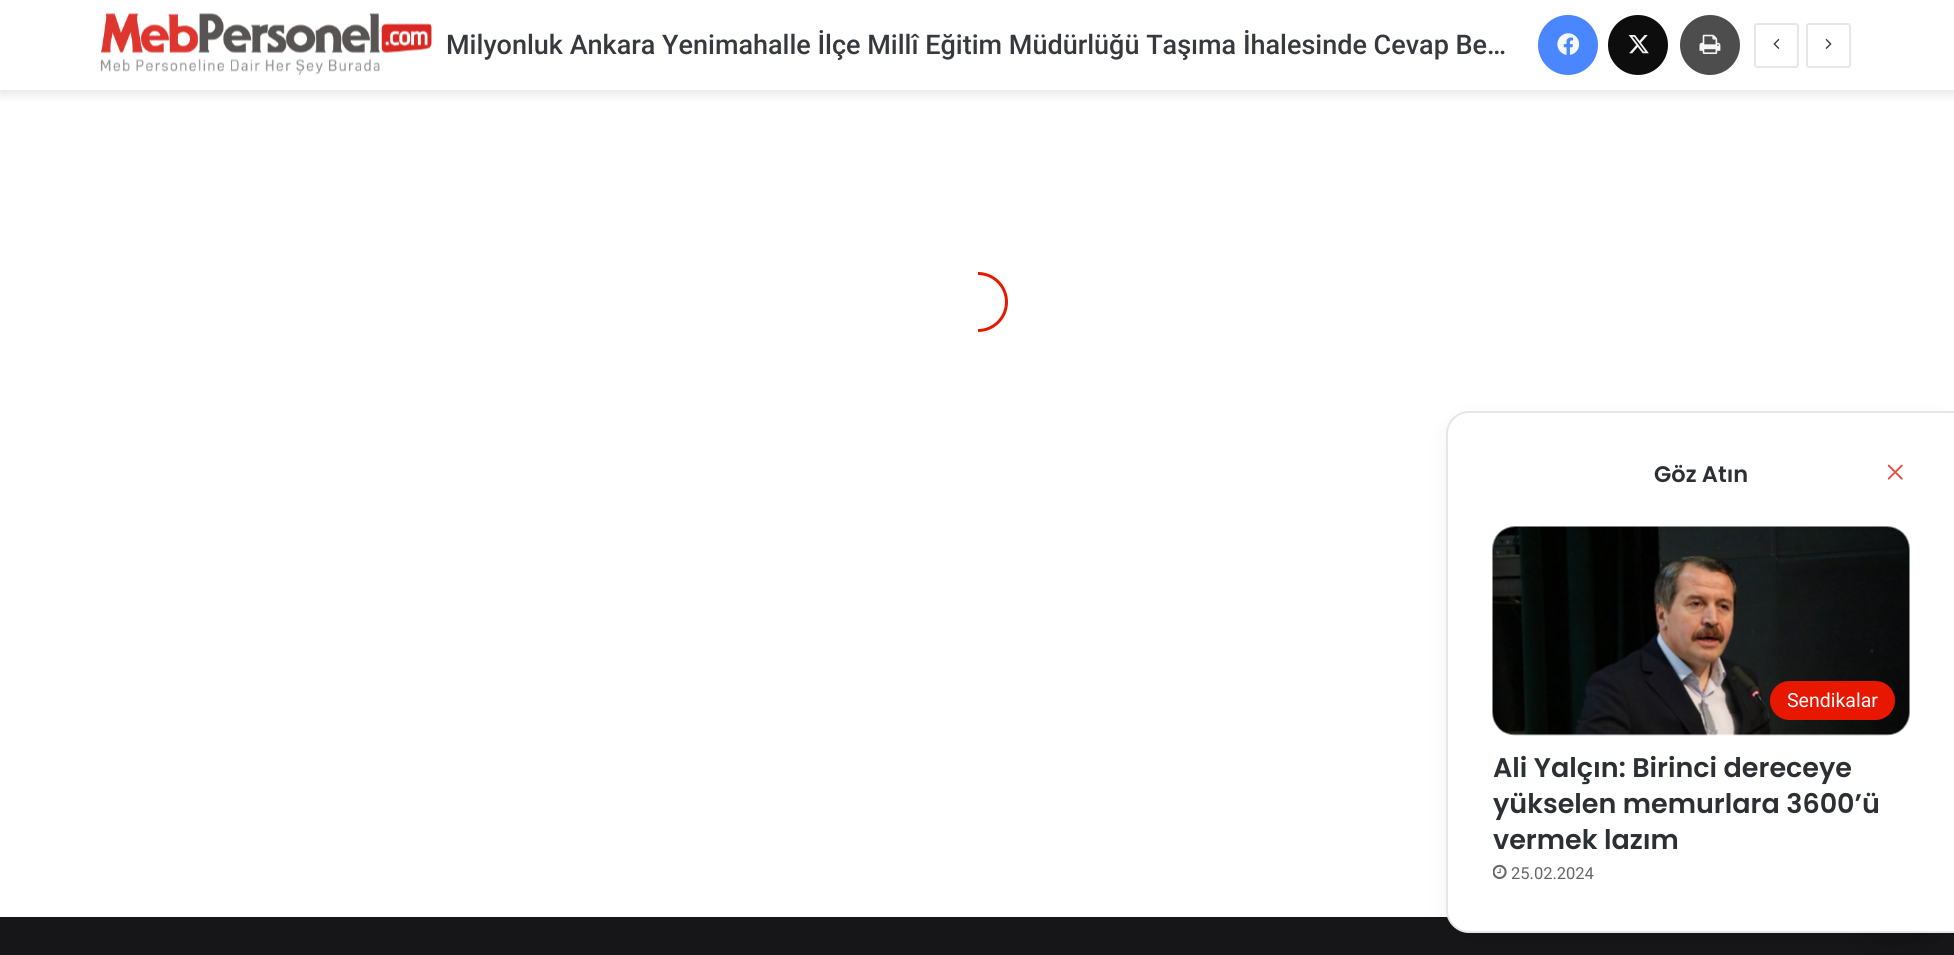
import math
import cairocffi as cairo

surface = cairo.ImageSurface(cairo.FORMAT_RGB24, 1954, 955)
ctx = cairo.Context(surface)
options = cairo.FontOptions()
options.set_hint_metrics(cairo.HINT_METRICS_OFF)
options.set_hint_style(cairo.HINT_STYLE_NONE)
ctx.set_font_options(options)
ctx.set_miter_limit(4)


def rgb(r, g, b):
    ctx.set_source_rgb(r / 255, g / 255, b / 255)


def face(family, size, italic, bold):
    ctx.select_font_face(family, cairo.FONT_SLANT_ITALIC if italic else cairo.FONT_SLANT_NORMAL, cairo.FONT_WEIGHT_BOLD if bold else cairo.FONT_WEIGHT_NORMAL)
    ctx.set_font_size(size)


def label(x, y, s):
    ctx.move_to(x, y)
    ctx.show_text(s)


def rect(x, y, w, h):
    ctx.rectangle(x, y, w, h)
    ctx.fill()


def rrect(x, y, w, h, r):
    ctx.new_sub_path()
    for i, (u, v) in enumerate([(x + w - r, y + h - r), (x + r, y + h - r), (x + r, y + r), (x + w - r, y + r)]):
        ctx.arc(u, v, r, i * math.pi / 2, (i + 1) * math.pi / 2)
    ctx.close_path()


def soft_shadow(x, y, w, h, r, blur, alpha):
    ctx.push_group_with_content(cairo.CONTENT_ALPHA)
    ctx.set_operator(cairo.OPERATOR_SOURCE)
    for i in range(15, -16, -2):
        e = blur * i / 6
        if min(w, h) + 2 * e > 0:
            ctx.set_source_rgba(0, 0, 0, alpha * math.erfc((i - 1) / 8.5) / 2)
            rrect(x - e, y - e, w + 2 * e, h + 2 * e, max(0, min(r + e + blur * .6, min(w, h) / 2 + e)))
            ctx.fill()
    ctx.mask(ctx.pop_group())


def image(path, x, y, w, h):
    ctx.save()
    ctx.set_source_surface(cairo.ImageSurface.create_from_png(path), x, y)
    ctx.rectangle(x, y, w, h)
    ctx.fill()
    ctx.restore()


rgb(255, 255, 255)
ctx.paint()
ctx.save()
ctx.rectangle(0, 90, 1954, 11)
ctx.clip()
rgb(99, 99, 99)
soft_shadow(0, 3, 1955, 90, 0, 6, 0.2)
ctx.restore()
image('image0.png', 100, 13, 332, 63)
face('Roboto Medium', 27, 0, 0)
rgb(55, 57, 62)
label(446, 54, 'Milyonluk Ankara Yenimahalle İlçe Millî Eğitim Müdürlüğü Taşıma İhalesinde Cevap Be…')
rgb(74, 134, 255)
ctx.new_path()
ctx.arc(1568, 45, 30, 0, 2 * math.pi)
ctx.fill()
image('image1.png', 1557, 33, 23, 22)
rgb(13, 13, 13)
ctx.arc(1638, 45, 30, 0, 2 * math.pi)
ctx.fill()
image('image2.png', 1628, 35, 21, 19)
rgb(77, 77, 77)
ctx.arc(1710, 45, 30, 0, 2 * math.pi)
ctx.fill()
image('image3.png', 1699, 34, 22, 20)
rrect(1755, 24, 43, 43, 2)
rgb(231, 231, 231)
ctx.stroke()
image('image4.png', 1773, 39, 7, 10)
rrect(1807, 24, 43, 43, 2)
ctx.stroke()
image('image5.png', 1825, 39, 7, 10)
ctx.save()
ctx.rectangle(978, 272, 30, 60)
ctx.clip()
ctx.arc(978, 302, 28.5, 0, 2 * math.pi)
rgb(232, 23, 0)
ctx.set_line_width(3)
ctx.stroke()
ctx.restore()
rgb(22, 22, 25)
rect(0, 917, 1954, 38)
rgb(0, 0, 0)
soft_shadow(1446, 419, 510, 522, 23, 11, 0.05)
soft_shadow(1862, 870, 63, 63, 31.5, 19, 0.3)
rgb(255, 255, 255)
ctx.new_path()
ctx.move_to(1469, 411)
ctx.line_to(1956, 411)
ctx.line_to(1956, 933)
ctx.line_to(1469, 933)
ctx.curve_to(1456.5, 933, 1446, 922.5, 1446, 910)
ctx.line_to(1446, 434)
ctx.curve_to(1446, 421.5, 1456.5, 411, 1469, 411)
ctx.close_path()
ctx.fill()
ctx.new_path()
ctx.move_to(1469, 412)
ctx.line_to(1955, 412)
ctx.line_to(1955, 932)
ctx.line_to(1469, 932)
ctx.curve_to(1457, 932, 1447, 922, 1447, 910)
ctx.line_to(1447, 434)
ctx.curve_to(1447, 422, 1457, 412, 1469, 412)
ctx.close_path()
ctx.set_source_rgba(0, 0, 0, 0.1)
ctx.stroke()
face('Poppins SemiBold', 22.5, 0, 0)
rgb(44, 47, 52)
label(1654, 482, 'Göz Atın')
image('image6.png', 1887, 464, 16, 16)
image('image7.png', 1492, 526, 418, 210)
rgb(232, 23, 0)
rrect(1770, 681, 125, 39, 19.5)
ctx.fill()
face('Roboto', 19.5, 0, 0)
rgb(255, 255, 255)
label(1787, 707, 'Sendikalar')
face('Poppins SemiBold', 27, 0, 0)
rgb(44, 47, 52)
label(1493, 777, 'Ali Yalçın: Birinci dereceye')
label(1493, 813, 'yükselen memurlara 3600’ü')
label(1493, 849, 'vermek lazım')
image('image8.png', 1493, 864, 14, 15)
face('Roboto', 16.5, 0, 0)
rgb(102, 102, 102)
label(1511, 879, '25.02.2024')
surface.write_to_png('render.png')
